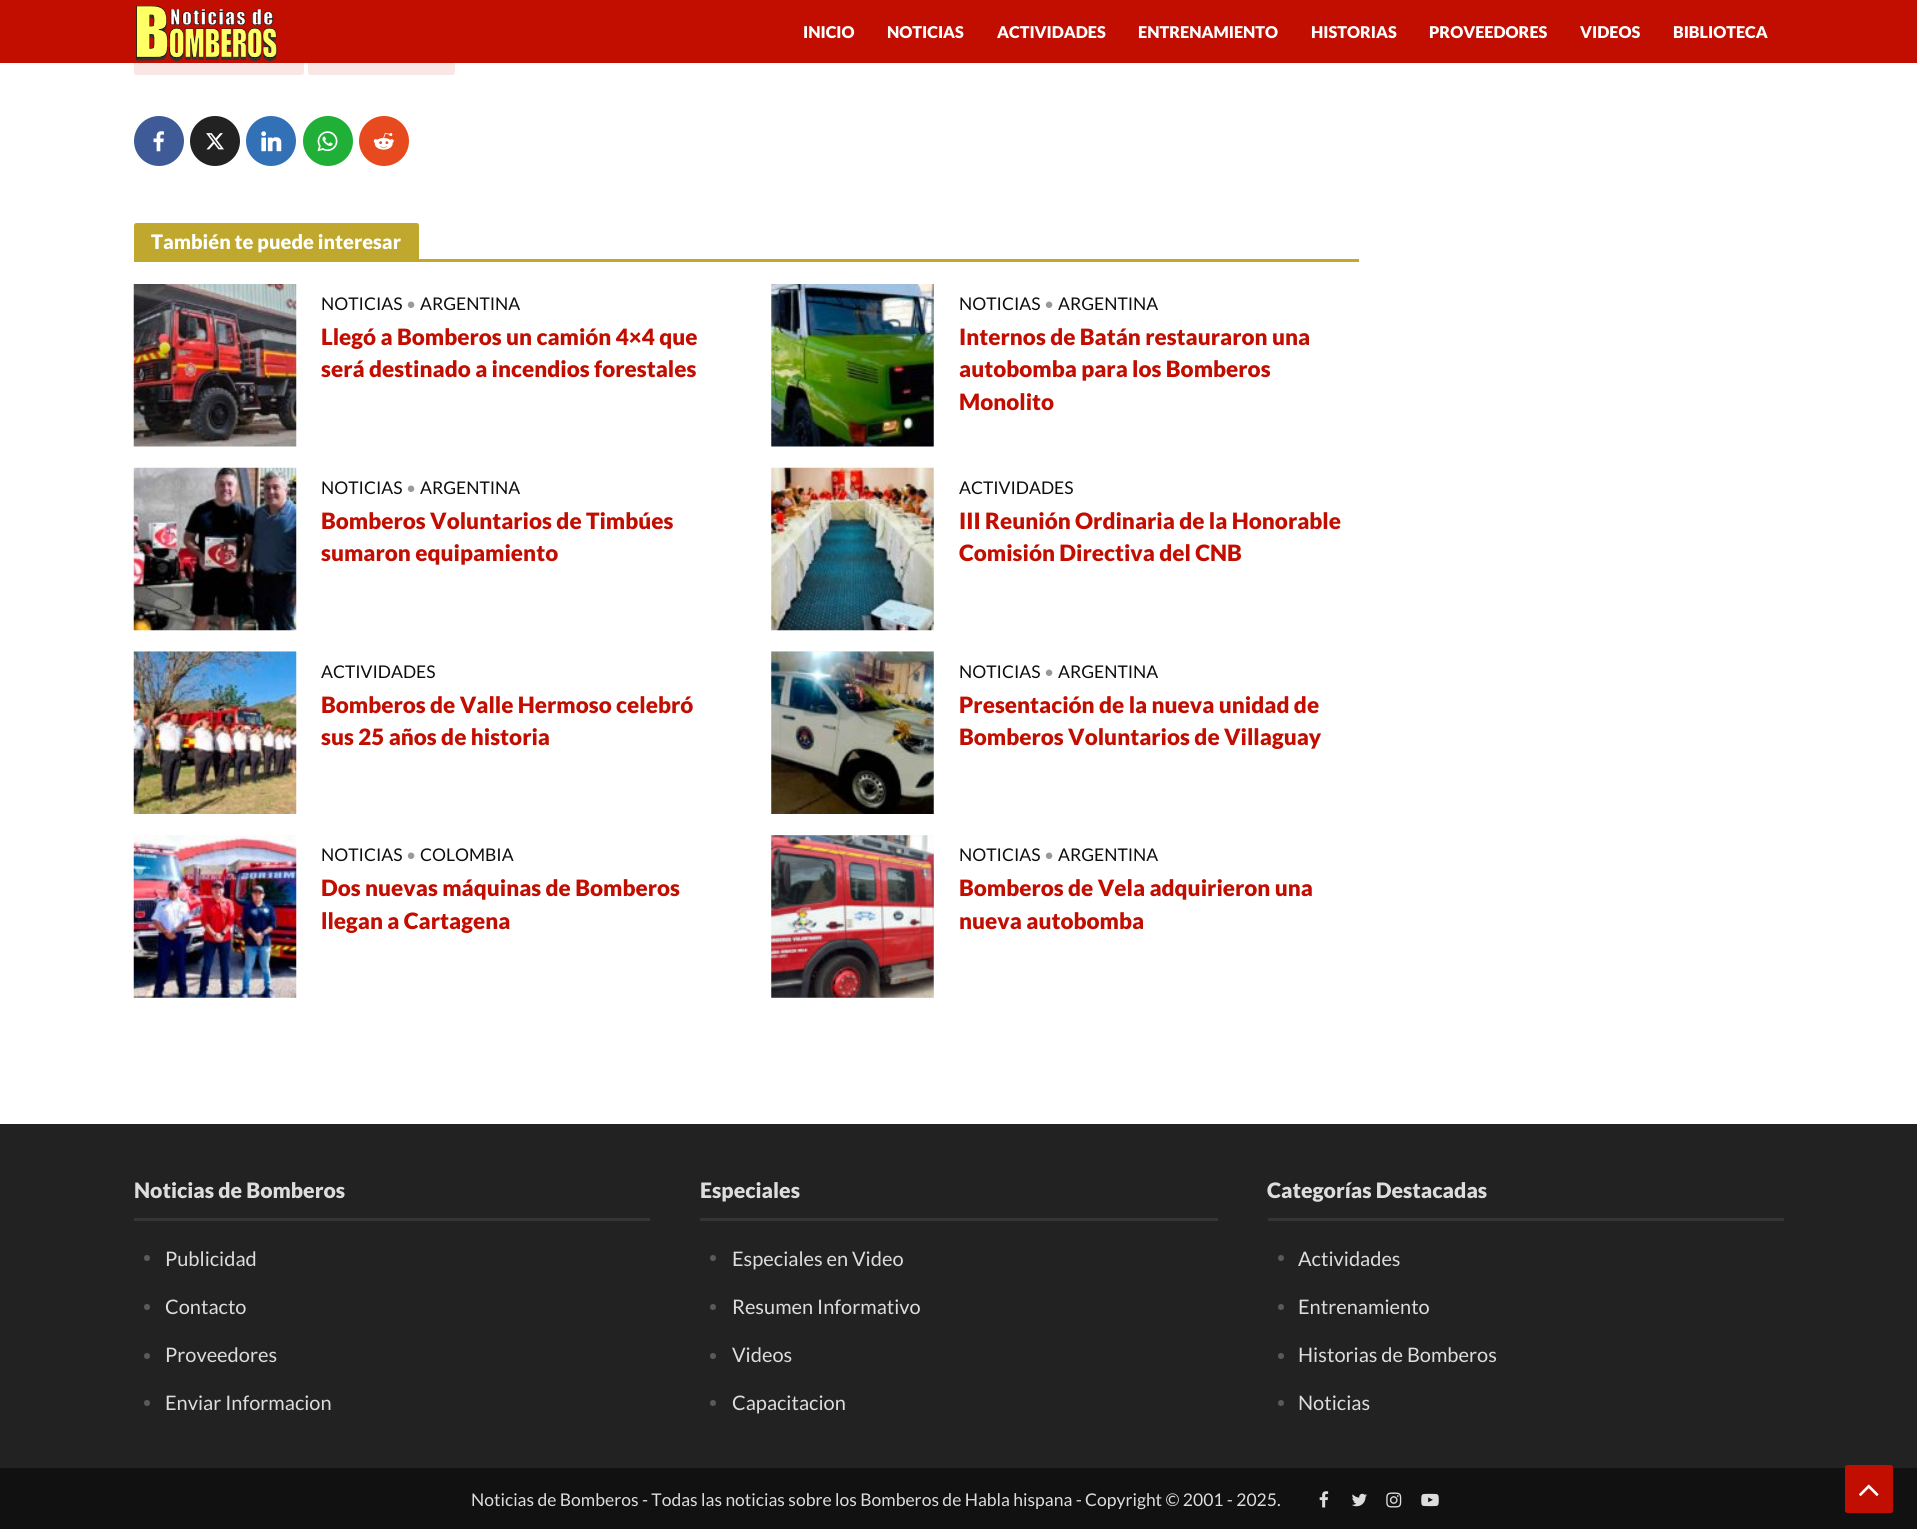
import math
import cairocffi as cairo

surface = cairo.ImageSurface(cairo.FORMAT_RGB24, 1917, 1529)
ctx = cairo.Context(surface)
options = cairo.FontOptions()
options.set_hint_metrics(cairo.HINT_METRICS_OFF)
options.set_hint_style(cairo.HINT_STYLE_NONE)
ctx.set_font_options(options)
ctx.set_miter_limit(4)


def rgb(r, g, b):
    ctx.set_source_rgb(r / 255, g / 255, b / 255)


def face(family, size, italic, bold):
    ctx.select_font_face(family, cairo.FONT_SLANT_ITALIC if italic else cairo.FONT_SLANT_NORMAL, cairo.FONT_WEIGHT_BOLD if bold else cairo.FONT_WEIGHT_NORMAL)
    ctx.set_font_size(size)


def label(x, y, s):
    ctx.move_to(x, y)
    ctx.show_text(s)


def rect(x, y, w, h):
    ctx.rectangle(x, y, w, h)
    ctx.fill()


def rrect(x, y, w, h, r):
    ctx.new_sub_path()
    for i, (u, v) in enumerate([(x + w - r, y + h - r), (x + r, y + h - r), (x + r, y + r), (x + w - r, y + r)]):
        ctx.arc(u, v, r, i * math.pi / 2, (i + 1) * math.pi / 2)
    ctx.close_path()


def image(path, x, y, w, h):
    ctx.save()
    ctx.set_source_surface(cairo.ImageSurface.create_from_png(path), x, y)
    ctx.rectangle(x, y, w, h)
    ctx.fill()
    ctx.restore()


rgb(255, 255, 255)
ctx.paint()
rgb(249, 231, 230)
rrect(134, 38, 170, 37, 2.5)
ctx.fill()
rrect(308, 38, 147, 37, 2.5)
ctx.fill()
rgb(193, 14, 1)
rect(0, 0, 1917, 63)
image('image0.png', 136, 6, 142, 55)
face('Lato Black', 16.25, 0, 0)
rgb(255, 255, 255)
label(803, 38, 'INICIO')
label(887, 38, 'NOTICIAS')
label(997, 38, 'ACTIVIDADES')
label(1138, 38, 'ENTRENAMIENTO')
label(1311, 38, 'HISTORIAS')
label(1429, 38, 'PROVEEDORES')
label(1580, 38, 'VIDEOS')
label(1673, 38, 'BIBLIOTECA')
rgb(62, 91, 152)
ctx.new_path()
ctx.arc(159, 141, 25, 0, 2 * math.pi)
ctx.fill()
image('image1.png', 153, 131, 11, 21)
rgb(34, 34, 34)
ctx.arc(215, 141, 25, 0, 2 * math.pi)
ctx.fill()
image('image2.png', 206, 133, 18, 17)
rgb(51, 113, 183)
ctx.arc(271, 141, 25, 0, 2 * math.pi)
ctx.fill()
image('image3.png', 261, 131, 21, 21)
rgb(32, 176, 56)
ctx.arc(328, 141, 25, 0, 2 * math.pi)
ctx.fill()
image('image4.png', 317, 131, 21, 21)
rgb(231, 74, 30)
ctx.arc(384, 141, 25, 0, 2 * math.pi)
ctx.fill()
image('image5.png', 373, 132, 21, 18)
rgb(191, 168, 45)
ctx.new_path()
ctx.move_to(136.5, 223)
ctx.line_to(416.5, 223)
ctx.curve_to(418, 223, 419, 224, 419, 225.5)
ctx.line_to(419, 259)
ctx.line_to(134, 259)
ctx.line_to(134, 225.5)
ctx.curve_to(134, 224, 135, 223, 136.5, 223)
ctx.close_path()
ctx.fill()
face('Lato Black', 20, 0, 0)
rgb(255, 255, 255)
label(151, 249, 'También te puede interesar')
rgb(191, 168, 45)
rect(134, 259, 1225, 3)
image('image6.png', 133, 284, 164, 163)
face('Lato', 17.5, 0, 0)
rgb(14, 14, 14)
label(321, 310, 'NOTICIAS')
rgb(153, 153, 153)
label(406, 310, '•')
rgb(14, 14, 14)
label(420, 310, 'ARGENTINA')
face('Lato Black', 22.5, 0, 0)
rgb(193, 14, 1)
label(321, 345, 'Llegó a Bomberos un camión 4×4 que')
label(321, 377, 'será destinado a incendios forestales')
image('image7.png', 771, 284, 163, 163)
face('Lato', 17.5, 0, 0)
rgb(14, 14, 14)
label(959, 310, 'NOTICIAS')
rgb(153, 153, 153)
label(1044, 310, '•')
rgb(14, 14, 14)
label(1058, 310, 'ARGENTINA')
face('Lato Black', 22.5, 0, 0)
rgb(193, 14, 1)
label(959, 345, 'Internos de Batán restauraron una')
label(959, 377, 'autobomba para los Bomberos')
label(959, 410, 'Monolito')
image('image8.png', 133, 467, 164, 164)
face('Lato', 17.5, 0, 0)
rgb(14, 14, 14)
label(321, 494, 'NOTICIAS')
rgb(153, 153, 153)
label(406, 494, '•')
rgb(14, 14, 14)
label(420, 494, 'ARGENTINA')
face('Lato Black', 22.5, 0, 0)
rgb(193, 14, 1)
label(321, 529, 'Bomberos Voluntarios de Timbúes')
label(321, 561, 'sumaron equipamiento')
image('image9.png', 771, 467, 163, 164)
face('Lato', 17.5, 0, 0)
rgb(14, 14, 14)
label(959, 494, 'ACTIVIDADES')
face('Lato Black', 22.5, 0, 0)
rgb(193, 14, 1)
label(959, 529, 'III Reunión Ordinaria de la Honorable')
label(959, 561, 'Comisión Directiva del CNB')
rgb(242, 242, 242)
rect(134, 651, 162, 1)
image('image10.png', 133, 651, 164, 163)
face('Lato', 17.5, 0, 0)
rgb(14, 14, 14)
label(321, 678, 'ACTIVIDADES')
face('Lato Black', 22.5, 0, 0)
rgb(193, 14, 1)
label(321, 713, 'Bomberos de Valle Hermoso celebró')
label(321, 745, 'sus 25 años de historia')
rgb(242, 242, 242)
rect(771, 651, 163, 163)
image('image11.png', 771, 651, 163, 163)
face('Lato', 17.5, 0, 0)
rgb(14, 14, 14)
label(959, 678, 'NOTICIAS')
rgb(153, 153, 153)
label(1044, 678, '•')
rgb(14, 14, 14)
label(1058, 678, 'ARGENTINA')
face('Lato Black', 22.5, 0, 0)
rgb(193, 14, 1)
label(959, 713, 'Presentación de la nueva unidad de')
label(959, 745, 'Bomberos Voluntarios de Villaguay')
image('image12.png', 133, 835, 164, 163)
face('Lato', 17.5, 0, 0)
rgb(14, 14, 14)
label(321, 861, 'NOTICIAS')
rgb(153, 153, 153)
label(406, 861, '•')
rgb(14, 14, 14)
label(420, 861, 'COLOMBIA')
face('Lato Black', 22.5, 0, 0)
rgb(193, 14, 1)
label(321, 896, 'Dos nuevas máquinas de Bomberos')
label(321, 929, 'llegan a Cartagena')
rgb(242, 242, 242)
rect(771, 835, 163, 163)
image('image13.png', 771, 835, 163, 163)
face('Lato', 17.5, 0, 0)
rgb(14, 14, 14)
label(959, 861, 'NOTICIAS')
rgb(153, 153, 153)
label(1044, 861, '•')
rgb(14, 14, 14)
label(1058, 861, 'ARGENTINA')
face('Lato Black', 22.5, 0, 0)
rgb(193, 14, 1)
label(959, 896, 'Bomberos de Vela adquirieron una')
label(959, 929, 'nueva autobomba')
rgb(34, 34, 34)
rect(0, 1124, 1917, 344)
face('Lato Black', 21.25, 0, 0)
rgb(221, 221, 221)
label(134, 1198, 'Noticias de Bomberos')
rgb(53, 53, 53)
rect(134, 1218, 516, 3)
rgb(90, 90, 90)
ctx.new_path()
ctx.arc(147, 1258, 3, 0, 2 * math.pi)
ctx.fill()
face('Lato', 20, 0, 0)
rgb(221, 221, 221)
label(165, 1266, 'Publicidad')
rgb(90, 90, 90)
ctx.new_path()
ctx.arc(147, 1307, 3, 0, 2 * math.pi)
ctx.fill()
rgb(221, 221, 221)
label(165, 1314, 'Contacto')
rgb(90, 90, 90)
ctx.new_path()
ctx.arc(147, 1356, 3, 0, 2 * math.pi)
ctx.fill()
rgb(221, 221, 221)
label(165, 1362, 'Proveedores')
rgb(90, 90, 90)
ctx.new_path()
ctx.arc(147, 1403, 3, 0, 2 * math.pi)
ctx.fill()
rgb(221, 221, 221)
label(165, 1410, 'Enviar Informacion')
face('Lato Black', 21.25, 0, 0)
label(700, 1198, 'Especiales')
rgb(53, 53, 53)
rect(700, 1218, 518, 3)
rgb(90, 90, 90)
ctx.new_path()
ctx.arc(713, 1258, 3, 0, 2 * math.pi)
ctx.fill()
face('Lato', 20, 0, 0)
rgb(221, 221, 221)
label(732, 1266, 'Especiales en Video')
rgb(90, 90, 90)
ctx.new_path()
ctx.arc(713, 1307, 3, 0, 2 * math.pi)
ctx.fill()
rgb(221, 221, 221)
label(732, 1314, 'Resumen Informativo')
rgb(90, 90, 90)
ctx.new_path()
ctx.arc(713, 1356, 3, 0, 2 * math.pi)
ctx.fill()
rgb(221, 221, 221)
label(732, 1362, 'Videos')
rgb(90, 90, 90)
ctx.new_path()
ctx.arc(713, 1403, 3, 0, 2 * math.pi)
ctx.fill()
rgb(221, 221, 221)
label(732, 1410, 'Capacitacion')
face('Lato Black', 21.25, 0, 0)
label(1267, 1198, 'Categorías Destacadas')
rgb(53, 53, 53)
rect(1268, 1218, 516, 3)
rgb(90, 90, 90)
ctx.new_path()
ctx.arc(1281, 1258, 3, 0, 2 * math.pi)
ctx.fill()
face('Lato', 20, 0, 0)
rgb(221, 221, 221)
label(1298, 1266, 'Actividades')
rgb(90, 90, 90)
ctx.new_path()
ctx.arc(1281, 1307, 3, 0, 2 * math.pi)
ctx.fill()
rgb(221, 221, 221)
label(1298, 1314, 'Entrenamiento')
rgb(90, 90, 90)
ctx.new_path()
ctx.arc(1281, 1356, 3, 0, 2 * math.pi)
ctx.fill()
rgb(221, 221, 221)
label(1298, 1362, 'Historias de Bomberos')
rgb(90, 90, 90)
ctx.new_path()
ctx.arc(1281, 1403, 3, 0, 2 * math.pi)
ctx.fill()
rgb(221, 221, 221)
label(1298, 1410, 'Noticias')
rgb(17, 17, 17)
rect(0, 1468, 1917, 61)
face('Lato', 17.5, 0, 0)
rgb(221, 221, 221)
label(471, 1506, 'Noticias de Bomberos - Todas las noticias sobre los Bomberos de Habla hispana - Copyright © 2001 - 2025.')
image('image14.png', 1319, 1491, 10, 17)
image('image15.png', 1352, 1493, 15, 14)
image('image16.png', 1386, 1492, 16, 16)
image('image17.png', 1421, 1493, 18, 14)
rgb(193, 14, 1)
rrect(1845, 1465, 48, 48, 2.5)
ctx.fill()
image('image18.png', 1859, 1484, 20, 12)
surface.write_to_png('render.png')
